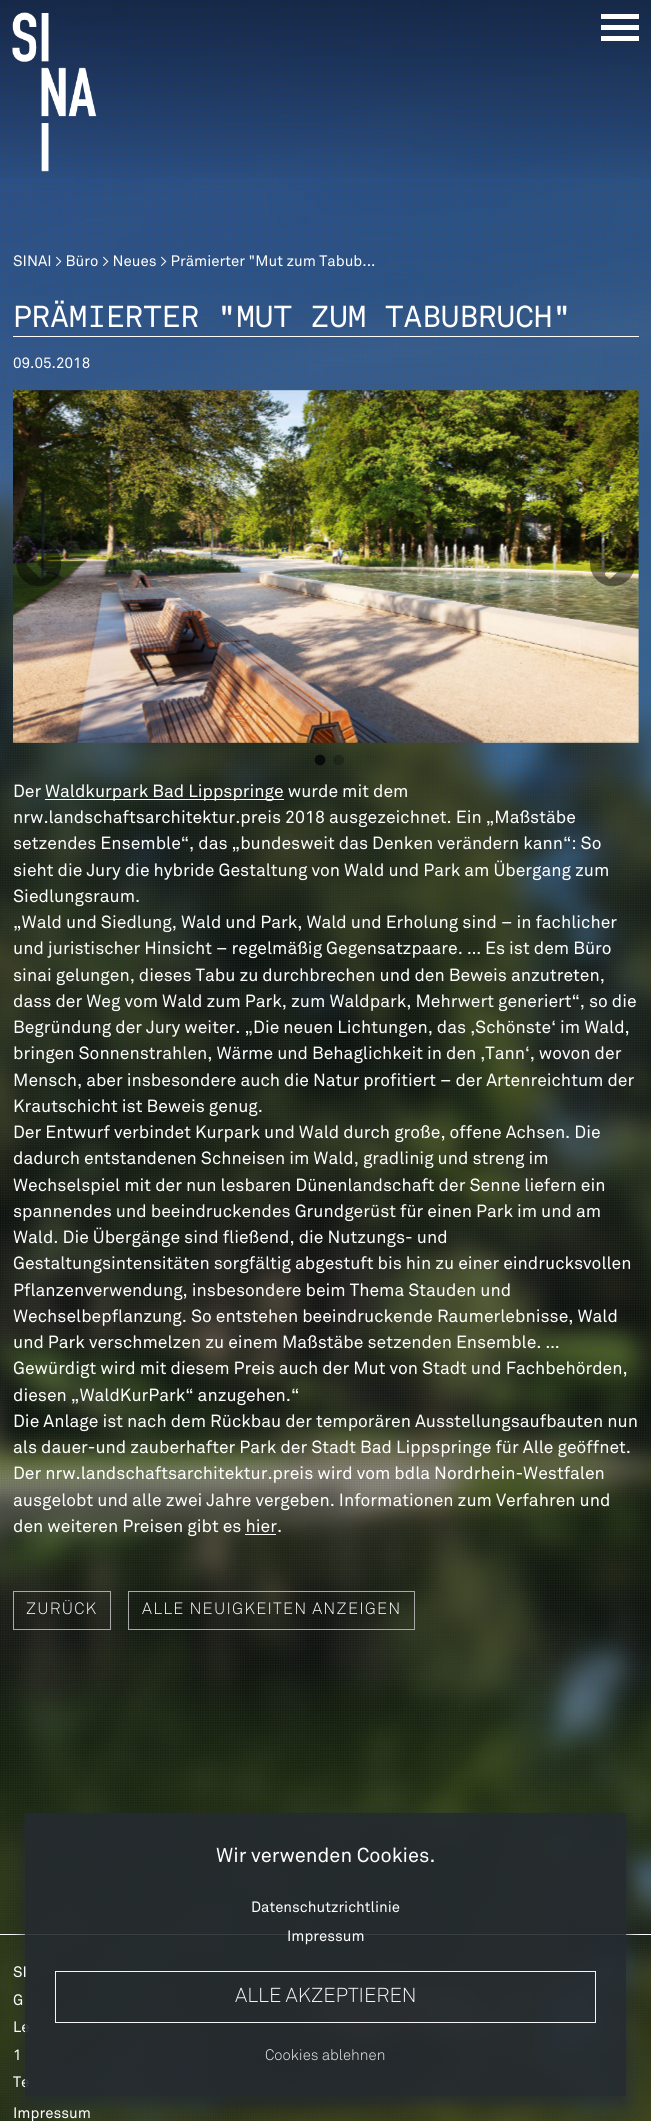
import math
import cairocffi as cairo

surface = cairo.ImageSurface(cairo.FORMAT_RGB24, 651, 2121)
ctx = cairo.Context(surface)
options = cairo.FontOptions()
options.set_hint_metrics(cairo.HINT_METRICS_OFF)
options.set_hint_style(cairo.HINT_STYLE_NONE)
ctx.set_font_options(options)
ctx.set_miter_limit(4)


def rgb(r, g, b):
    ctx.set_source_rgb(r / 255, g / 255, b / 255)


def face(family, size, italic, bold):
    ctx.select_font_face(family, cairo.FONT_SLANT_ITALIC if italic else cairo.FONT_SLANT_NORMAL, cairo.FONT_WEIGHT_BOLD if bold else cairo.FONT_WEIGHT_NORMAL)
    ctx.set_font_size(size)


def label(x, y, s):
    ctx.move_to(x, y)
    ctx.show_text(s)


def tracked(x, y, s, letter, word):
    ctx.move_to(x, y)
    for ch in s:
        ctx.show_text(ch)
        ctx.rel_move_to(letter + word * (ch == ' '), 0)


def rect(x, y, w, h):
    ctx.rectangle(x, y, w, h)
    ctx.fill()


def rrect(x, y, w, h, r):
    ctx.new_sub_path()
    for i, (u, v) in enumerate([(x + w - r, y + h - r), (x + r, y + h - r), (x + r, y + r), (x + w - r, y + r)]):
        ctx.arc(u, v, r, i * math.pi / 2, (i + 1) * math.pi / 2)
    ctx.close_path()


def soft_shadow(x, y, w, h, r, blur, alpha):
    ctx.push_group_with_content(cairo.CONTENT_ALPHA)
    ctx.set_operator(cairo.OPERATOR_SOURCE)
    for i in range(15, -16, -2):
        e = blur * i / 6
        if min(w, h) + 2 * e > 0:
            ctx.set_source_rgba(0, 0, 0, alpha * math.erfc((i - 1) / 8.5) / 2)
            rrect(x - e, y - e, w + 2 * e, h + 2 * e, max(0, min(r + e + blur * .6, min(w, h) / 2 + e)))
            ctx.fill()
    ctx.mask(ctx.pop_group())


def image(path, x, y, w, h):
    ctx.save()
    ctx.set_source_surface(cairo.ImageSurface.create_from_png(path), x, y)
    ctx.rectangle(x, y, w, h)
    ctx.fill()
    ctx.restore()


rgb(255, 255, 255)
ctx.paint()
image('image1.png', 0, 0, 651, 2121)
image('image2.png', 0, 1, 651, 2119)
gradient = cairo.LinearGradient(326, 0, 326, 188)
gradient.add_color_stop_rgba(0, 0, 0, 0, 0.4)
gradient.add_color_stop_rgba(1, 0, 0, 0, 0)
ctx.set_source(gradient)
rect(0, 0, 651, 178)
image('image0.png', 12, 12, 85, 160)
rgb(255, 255, 255)
rect(601, 25, 38, 5)
rect(601, 14, 38, 5)
rect(601, 36, 38, 5)
face('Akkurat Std', 15, 0, 0)
label(13, 266, 'SINAI > Büro > Neues > Prämierter "Mut zum Tabub...')
rect(13, 336, 626, 1)
face('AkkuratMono', 30, 0, 0)
label(13, 327, 'PRÄMIERTER "MUT ZUM TABUBRUCH"')
face('Akkurat Std', 15, 0, 0)
label(13, 368, '09.05.2018')
image('image3.png', 13, 390, 626, 353)
image('image4.png', 314, 754, 12, 12)
image('image5.png', 333, 754, 11, 11)
image('image6.png', 16, 541, 46, 46)
image('image7.png', 590, 541, 45, 46)
face('Akkurat Std', 17.5, 0, 0)
label(13, 797, 'Der')
rect(45, 799, 239, 1)
label(45, 797, 'Waldkurpark Bad Lippspringe wurde mit dem')
label(13, 823, 'nrw.landschaftsarchitektur.preis 2018 ausgezeichnet. Ein „Maßstäbe')
label(13, 849, 'setzendes Ensemble“, das „bundesweit das Denken verändern kann“: So')
label(13, 876, 'sieht die Jury die hybride Gestaltung von Wald und Park am Übergang zum')
label(13, 902, 'Siedlungsraum.')
label(13, 928, '„Wald und Siedlung, Wald und Park, Wald und Erholung sind – in fachlicher')
label(13, 954, 'und juristischer Hinsicht – regelmäßig Gegensatzpaare. … Es ist dem Büro')
label(13, 981, 'sinai gelungen, dieses Tabu zu durchbrechen und den Beweis anzutreten,')
label(13, 1007, 'dass der Weg vom Wald zum Park, zum Waldpark, Mehrwert generiert“, so die')
label(13, 1033, 'Begründung der Jury weiter. „Die neuen Lichtungen, das ‚Schönste‘ im Wald,')
label(13, 1059, 'bringen Sonnenstrahlen, Wärme und Behaglichkeit in den ‚Tann‘, wovon der')
label(13, 1086, 'Mensch, aber insbesondere auch die Natur profitiert – der Artenreichtum der')
label(13, 1112, 'Krautschicht ist Beweis genug.')
label(13, 1138, 'Der Entwurf verbindet Kurpark und Wald durch große, offene Achsen. Die')
label(13, 1164, 'dadurch entstandenen Schneisen im Wald, gradlinig und streng im')
label(13, 1191, 'Wechselspiel mit der nun lesbaren Dünenlandschaft der Senne liefern ein')
label(13, 1217, 'spannendes und beeindruckendes Grundgerüst für einen Park im und am')
label(13, 1243, 'Wald. Die Übergänge sind fließend, die Nutzungs- und')
label(13, 1269, 'Gestaltungsintensitäten sorgfältig abgestuft bis hin zu einer eindrucksvollen')
label(13, 1296, 'Pflanzenverwendung, insbesondere beim Thema Stauden und')
label(13, 1322, 'Wechselbepflanzung. So entstehen beeindruckende Raumerlebnisse, Wald')
label(13, 1348, 'und Park verschmelzen zu einem Maßstäbe setzenden Ensemble. …')
label(13, 1374, 'Gewürdigt wird mit diesem Preis auch der Mut von Stadt und Fachbehörden,')
label(13, 1401, 'diesen „WaldKurPark“ anzugehen.“')
label(13, 1427, 'Die Anlage ist nach dem Rückbau der temporären Ausstellungsaufbauten nun')
label(13, 1453, 'als dauer-und zauberhafter Park der Stadt Bad Lippspringe für Alle geöffnet.')
label(13, 1479, 'Der nrw.landschaftsarchitektur.preis wird vom bdla Nordrhein-Westfalen')
label(13, 1506, 'ausgelobt und alle zwei Jahre vergeben. Informationen zum Verfahren und')
label(13, 1532, 'den weiteren Preisen gibt es hier.')
rect(245, 1534, 31, 1)
ctx.rectangle(13.5, 1591.5, 97, 38)
rgb(170, 170, 170)
ctx.set_line_width(1)
ctx.stroke()
face('Akkurat Std Light', 16.25, 0, 0)
rgb(255, 255, 255)
tracked(26, 1614, 'ZURÜCK', 1.25, 0)
ctx.rectangle(128.5, 1591.5, 286, 38)
rgb(170, 170, 170)
ctx.stroke()
rgb(255, 255, 255)
tracked(142, 1614, 'ALLE NEUIGKEITEN ANZEIGEN', 1.25, 0)
rect(0, 1934, 651, 1)
ctx.save()
ctx.set_fill_rule(cairo.FILL_RULE_EVEN_ODD)
ctx.new_path()
ctx.move_to(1, 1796)
ctx.line_to(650, 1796)
ctx.line_to(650, 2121)
ctx.line_to(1, 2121)
ctx.close_path()
ctx.move_to(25, 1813)
ctx.line_to(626, 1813)
ctx.line_to(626, 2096)
ctx.line_to(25, 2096)
ctx.close_path()
ctx.clip()
rgb(37, 43, 48)
soft_shadow(25, 1820, 601, 284, 0, 7.5, 0.9)
ctx.restore()
face('Akkurat Std', 15, 0, 0)
label(13, 2032, 'Le')
label(13, 2087, 'Te')
ctx.set_source_rgba(0.145, 0.169, 0.188, 0.9)
rect(25, 1813, 601, 283)
face('Akkurat Std', 20, 0, 0)
rgb(255, 255, 255)
label(216, 1862, 'Wir verwenden Cookies.')
face('Akkurat Std', 14.9, 0, 0)
label(251, 1912, 'Datenschutzrichtlinie')
label(287, 1941, 'Impressum')
ctx.rectangle(55.5, 1971.5, 540, 51)
ctx.set_source_rgba(1, 1, 1, 0.95)
ctx.stroke()
face('Akkurat Std Light', 20, 0, 0)
rgb(244, 244, 245)
label(235, 2002, 'ALLE AKZEPTIEREN')
face('Akkurat Std Light', 15, 0, 0)
label(265, 2060, 'Cookies ablehnen')
face('Akkurat Std', 15, 0, 0)
rgb(255, 255, 255)
label(13, 1977, 'SI')
label(13, 2005, 'G')
label(13, 2060, '1')
label(13, 2118, 'Impressum')
surface.write_to_png('render.png')
